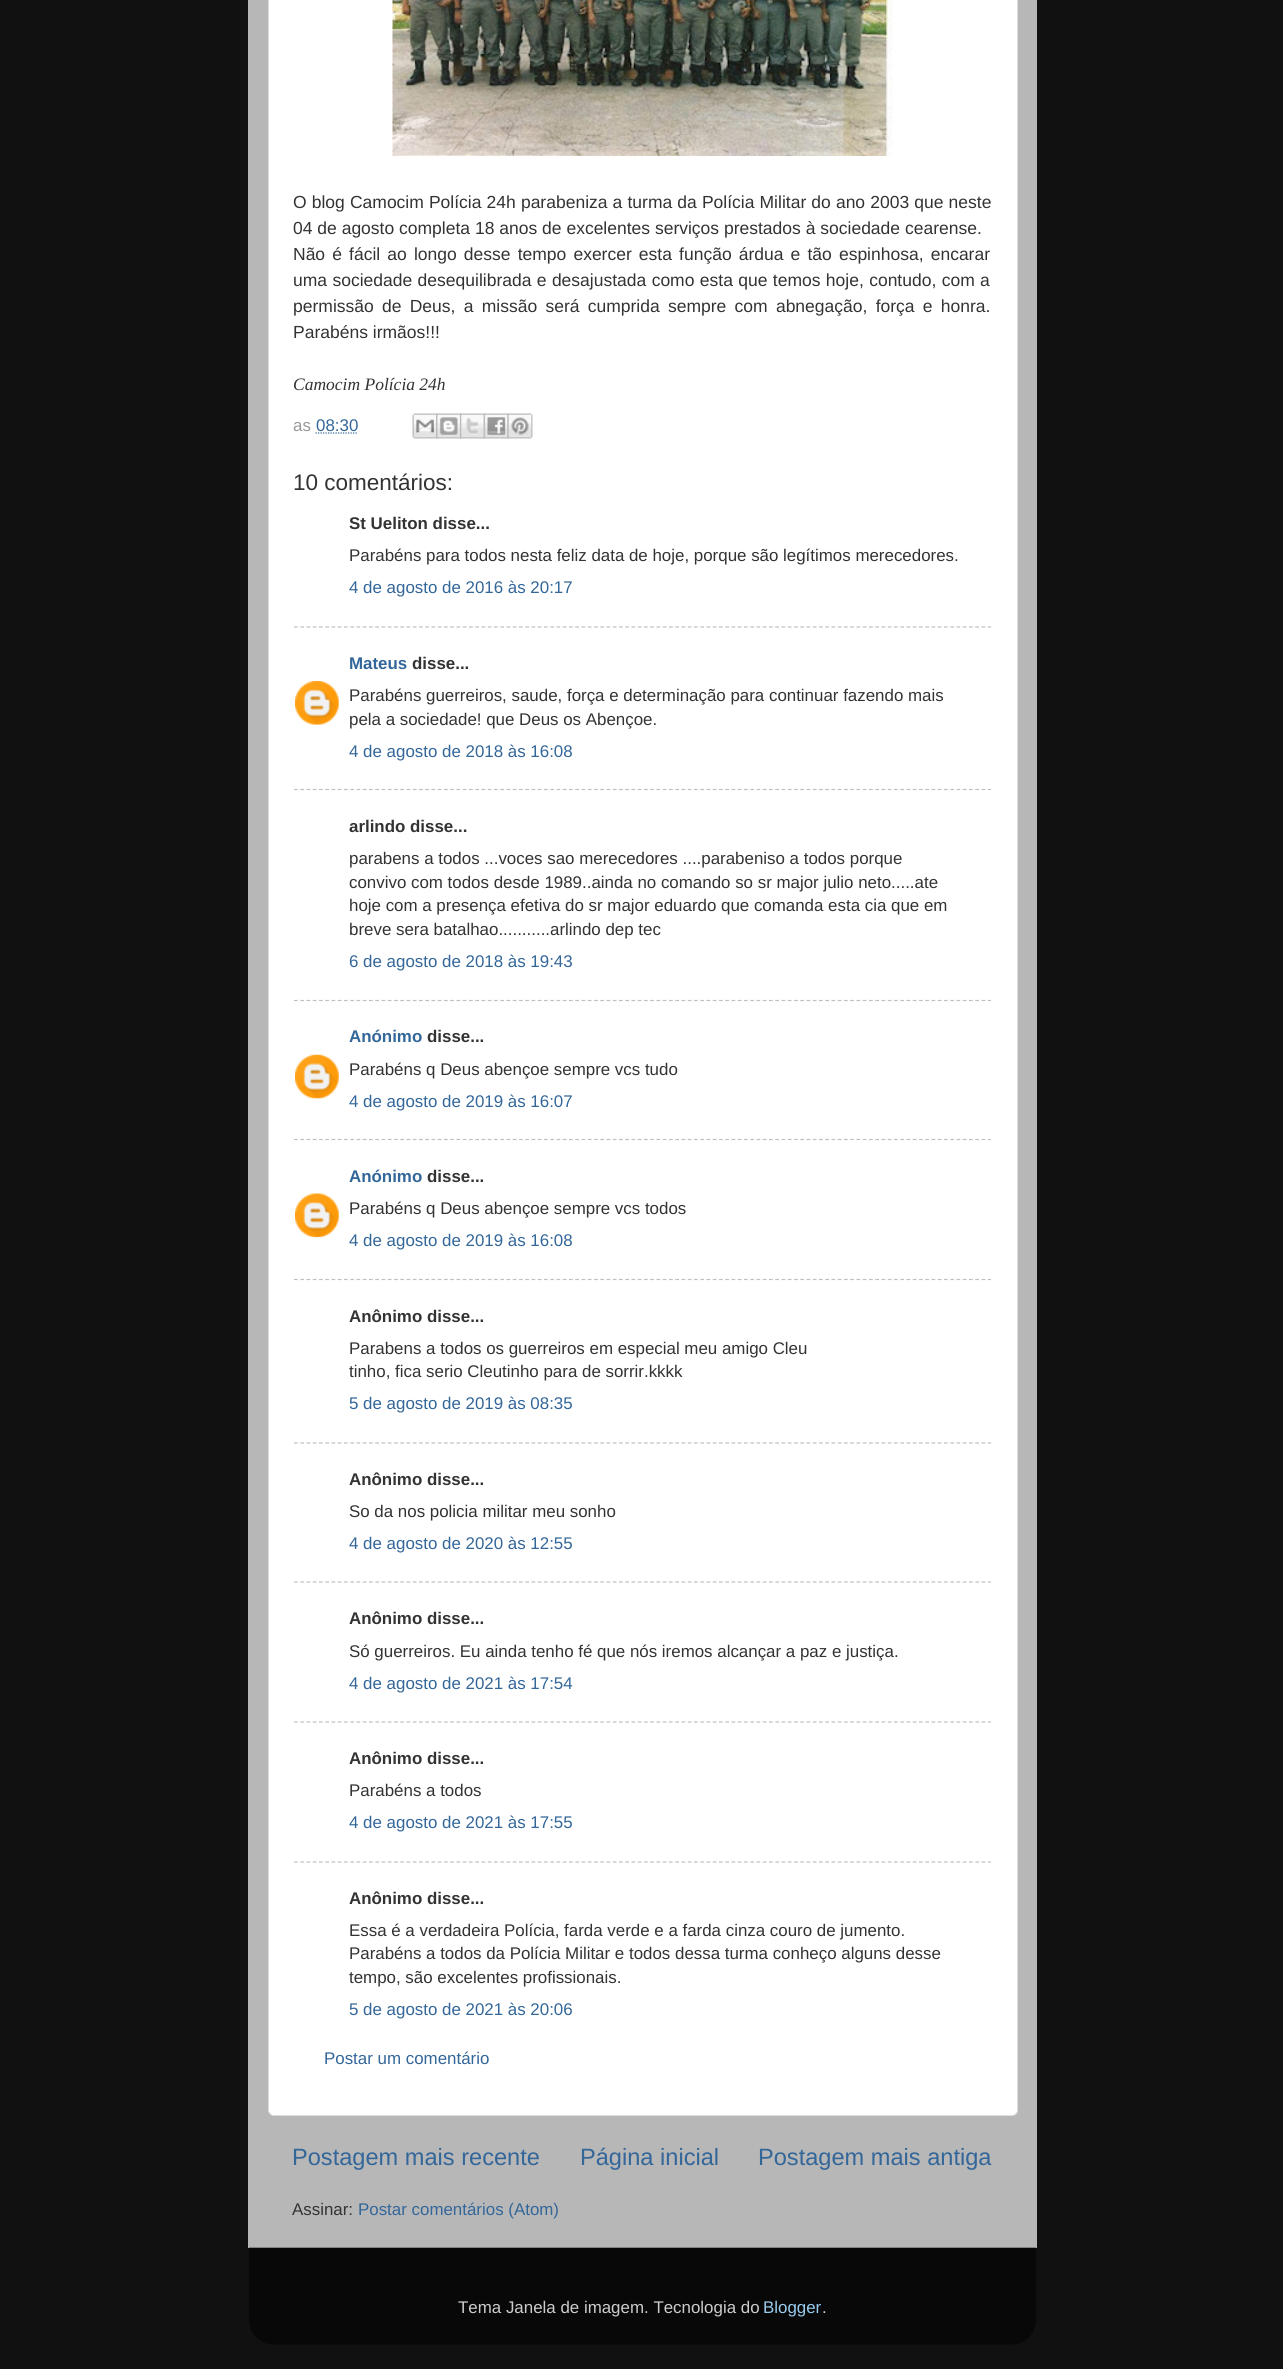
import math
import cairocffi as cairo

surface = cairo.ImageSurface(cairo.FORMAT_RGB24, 1283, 2369)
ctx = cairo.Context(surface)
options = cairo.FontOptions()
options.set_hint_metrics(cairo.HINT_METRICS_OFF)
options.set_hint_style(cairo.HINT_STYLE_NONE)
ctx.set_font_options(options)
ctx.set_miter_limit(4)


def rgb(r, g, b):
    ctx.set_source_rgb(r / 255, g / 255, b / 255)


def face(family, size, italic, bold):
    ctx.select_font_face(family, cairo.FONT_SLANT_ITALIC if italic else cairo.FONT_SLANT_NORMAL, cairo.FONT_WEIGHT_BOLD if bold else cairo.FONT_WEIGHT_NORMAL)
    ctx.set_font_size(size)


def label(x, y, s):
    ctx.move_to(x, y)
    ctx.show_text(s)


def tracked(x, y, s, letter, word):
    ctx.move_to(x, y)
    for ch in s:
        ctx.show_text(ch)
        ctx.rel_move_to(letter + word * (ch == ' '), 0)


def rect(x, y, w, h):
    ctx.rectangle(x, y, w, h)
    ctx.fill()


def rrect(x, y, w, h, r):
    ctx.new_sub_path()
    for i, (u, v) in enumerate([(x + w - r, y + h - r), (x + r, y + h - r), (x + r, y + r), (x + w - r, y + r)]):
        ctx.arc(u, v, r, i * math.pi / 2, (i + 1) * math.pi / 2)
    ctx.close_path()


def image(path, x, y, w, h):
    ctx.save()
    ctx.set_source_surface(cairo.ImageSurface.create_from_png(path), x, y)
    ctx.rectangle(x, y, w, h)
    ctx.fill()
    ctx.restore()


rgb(17, 17, 17)
ctx.paint()
rgb(183, 183, 183)
rect(248, 0, 789, 2248)
rgb(255, 255, 255)
rrect(268.5, -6.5, 749, 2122, 5.5)
ctx.fill_preserve()
rgb(221, 221, 221)
ctx.set_line_width(1)
ctx.stroke()
image('image0.png', 392, 0, 501, 156)
face('Liberation Sans', 17.5, 0, 0)
rgb(51, 51, 51)
tracked(293, 208, 'O blog Camocim Polícia 24h parabeniza a turma da Polícia Militar do ano 2003 que neste', 0, 0.25)
label(293, 234, '04 de agosto completa 18 anos de excelentes serviços prestados à sociedade cearense.')
tracked(293, 260, 'Não é fácil ao longo desse tempo exercer esta função árdua e tão espinhosa, encarar', 0, 2.25)
tracked(293, 286, 'uma sociedade desequilibrada e desajustada como esta que temos hoje, contudo, com a', 0, 0.5)
tracked(293, 312, 'permissão de Deus, a missão será cumprida sempre com abnegação, força e honra.', 0, 3.4)
label(293, 338, 'Parabéns irmãos!!!')
face('Liberation Serif', 17.5, 1, 0)
label(293, 390, 'Camocim Polícia 24h')
face('Liberation Sans', 16.9, 0, 0)
rgb(153, 153, 153)
label(293, 431, 'as')
rgb(51, 102, 153)
label(316, 431, '08:30')
ctx.new_path()
ctx.move_to(315.5, 433)
ctx.line_to(358, 433)
ctx.set_line_width(1.2)
ctx.set_dash([1.25, 1.25])
ctx.stroke()
image('image1.png', 412, 413, 26, 26)
image('image2.png', 436, 413, 26, 26)
image('image3.png', 460, 413, 25, 26)
image('image4.png', 483, 413, 26, 26)
image('image5.png', 507, 413, 26, 26)
face('Liberation Sans', 22.5, 0, 0)
rgb(51, 51, 51)
label(293, 490, '10 comentários:')
face('Liberation Sans', 16.9, 0, 1)
label(349, 529, 'St Ueliton disse...')
face('Liberation Sans', 16.9, 0, 0)
label(349, 561, 'Parabéns para todos nesta feliz data de hoje, porque são legítimos merecedores.')
rgb(51, 102, 153)
label(349, 593, '4 de agosto de 2016 às 20:17')
ctx.new_path()
ctx.move_to(294, 627)
ctx.line_to(991, 627)
rgb(192, 192, 192)
ctx.set_dash([3.75, 2.5])
ctx.stroke()
face('Liberation Sans', 16.9, 0, 1)
rgb(51, 102, 153)
label(349, 669, 'Mateus')
rgb(51, 51, 51)
label(412, 669, 'disse...')
image('image6.png', 295, 681, 44, 44)
face('Liberation Sans', 16.9, 0, 0)
label(349, 701, 'Parabéns guerreiros, saude, força e determinação para continuar fazendo mais')
label(349, 725, 'pela a sociedade! que Deus os Abençoe.')
rgb(51, 102, 153)
label(349, 757, '4 de agosto de 2018 às 16:08')
ctx.new_path()
ctx.move_to(294, 789.5)
ctx.line_to(991, 789.5)
rgb(192, 192, 192)
ctx.stroke()
face('Liberation Sans', 16.9, 0, 1)
rgb(51, 51, 51)
label(349, 832, 'arlindo disse...')
face('Liberation Sans', 16.9, 0, 0)
label(349, 864, 'parabens a todos ...voces sao merecedores ....parabeniso a todos porque')
label(349, 888, 'convivo com todos desde 1989..ainda no comando so sr major julio neto.....ate')
label(349, 911, 'hoje com a presença efetiva do sr major eduardo que comanda esta cia que em')
label(349, 935, 'breve sera batalhao...........arlindo dep tec')
rgb(51, 102, 153)
label(349, 967, '6 de agosto de 2018 às 19:43')
ctx.new_path()
ctx.move_to(294, 1000.5)
ctx.line_to(991, 1000.5)
rgb(192, 192, 192)
ctx.stroke()
face('Liberation Sans', 16.9, 0, 1)
rgb(51, 102, 153)
label(349, 1042, 'Anónimo')
rgb(51, 51, 51)
label(427, 1042, 'disse...')
image('image7.png', 295, 1054, 44, 45)
face('Liberation Sans', 16.9, 0, 0)
label(349, 1075, 'Parabéns q Deus abençoe sempre vcs tudo')
rgb(51, 102, 153)
label(349, 1107, '4 de agosto de 2019 às 16:07')
ctx.new_path()
ctx.move_to(294, 1139.5)
ctx.line_to(991, 1139.5)
rgb(192, 192, 192)
ctx.stroke()
face('Liberation Sans', 16.9, 0, 1)
rgb(51, 102, 153)
label(349, 1182, 'Anónimo')
rgb(51, 51, 51)
label(427, 1182, 'disse...')
image('image8.png', 295, 1193, 44, 45)
face('Liberation Sans', 16.9, 0, 0)
label(349, 1214, 'Parabéns q Deus abençoe sempre vcs todos')
rgb(51, 102, 153)
label(349, 1246, '4 de agosto de 2019 às 16:08')
ctx.new_path()
ctx.move_to(294, 1279.5)
ctx.line_to(991, 1279.5)
rgb(192, 192, 192)
ctx.stroke()
face('Liberation Sans', 16.9, 0, 1)
rgb(51, 51, 51)
label(349, 1322, 'Anônimo disse...')
face('Liberation Sans', 16.9, 0, 0)
label(349, 1354, 'Parabens a todos os guerreiros em especial meu amigo Cleu')
label(349, 1377, 'tinho, fica serio Cleutinho para de sorrir.kkkk')
rgb(51, 102, 153)
label(349, 1409, '5 de agosto de 2019 às 08:35')
ctx.new_path()
ctx.move_to(294, 1443)
ctx.line_to(991, 1443)
rgb(192, 192, 192)
ctx.stroke()
face('Liberation Sans', 16.9, 0, 1)
rgb(51, 51, 51)
label(349, 1485, 'Anônimo disse...')
face('Liberation Sans', 16.9, 0, 0)
label(349, 1517, 'So da nos policia militar meu sonho')
rgb(51, 102, 153)
label(349, 1549, '4 de agosto de 2020 às 12:55')
ctx.new_path()
ctx.move_to(294, 1582)
ctx.line_to(991, 1582)
rgb(192, 192, 192)
ctx.stroke()
face('Liberation Sans', 16.9, 0, 1)
rgb(51, 51, 51)
label(349, 1624, 'Anônimo disse...')
face('Liberation Sans', 16.9, 0, 0)
label(349, 1657, 'Só guerreiros. Eu ainda tenho fé que nós iremos alcançar a paz e justiça.')
rgb(51, 102, 153)
label(349, 1689, '4 de agosto de 2021 às 17:54')
ctx.new_path()
ctx.move_to(294, 1722)
ctx.line_to(991, 1722)
rgb(192, 192, 192)
ctx.stroke()
face('Liberation Sans', 16.9, 0, 1)
rgb(51, 51, 51)
label(349, 1764, 'Anônimo disse...')
face('Liberation Sans', 16.9, 0, 0)
label(349, 1796, 'Parabéns a todos')
rgb(51, 102, 153)
label(349, 1828, '4 de agosto de 2021 às 17:55')
ctx.new_path()
ctx.move_to(294, 1862)
ctx.line_to(991, 1862)
rgb(192, 192, 192)
ctx.stroke()
face('Liberation Sans', 16.9, 0, 1)
rgb(51, 51, 51)
label(349, 1904, 'Anônimo disse...')
face('Liberation Sans', 16.9, 0, 0)
label(349, 1936, 'Essa é a verdadeira Polícia, farda verde e a farda cinza couro de jumento.')
label(349, 1959, 'Parabéns a todos da Polícia Militar e todos dessa turma conheço alguns desse')
label(349, 1983, 'tempo, são excelentes profissionais.')
rgb(51, 102, 153)
label(349, 2015, '5 de agosto de 2021 às 20:06')
label(324, 2064, 'Postar um comentário')
face('Liberation Sans', 23.6, 0, 0)
label(292, 2165, 'Postagem mais recente')
label(580, 2165, 'Página inicial')
label(758, 2165, 'Postagem mais antiga')
face('Liberation Sans', 16.9, 0, 0)
rgb(51, 51, 51)
label(292, 2215, 'Assinar:')
rgb(51, 102, 153)
label(358, 2215, 'Postar comentários (Atom)')
image('image9.png', 249, 2247, 787, 98)
rgb(204, 204, 204)
label(458, 2313, 'Tema Janela de imagem. Tecnologia do')
rgb(153, 204, 238)
label(763, 2313, 'Blogger')
rgb(204, 204, 204)
label(822, 2313, '.')
surface.write_to_png('render.png')
